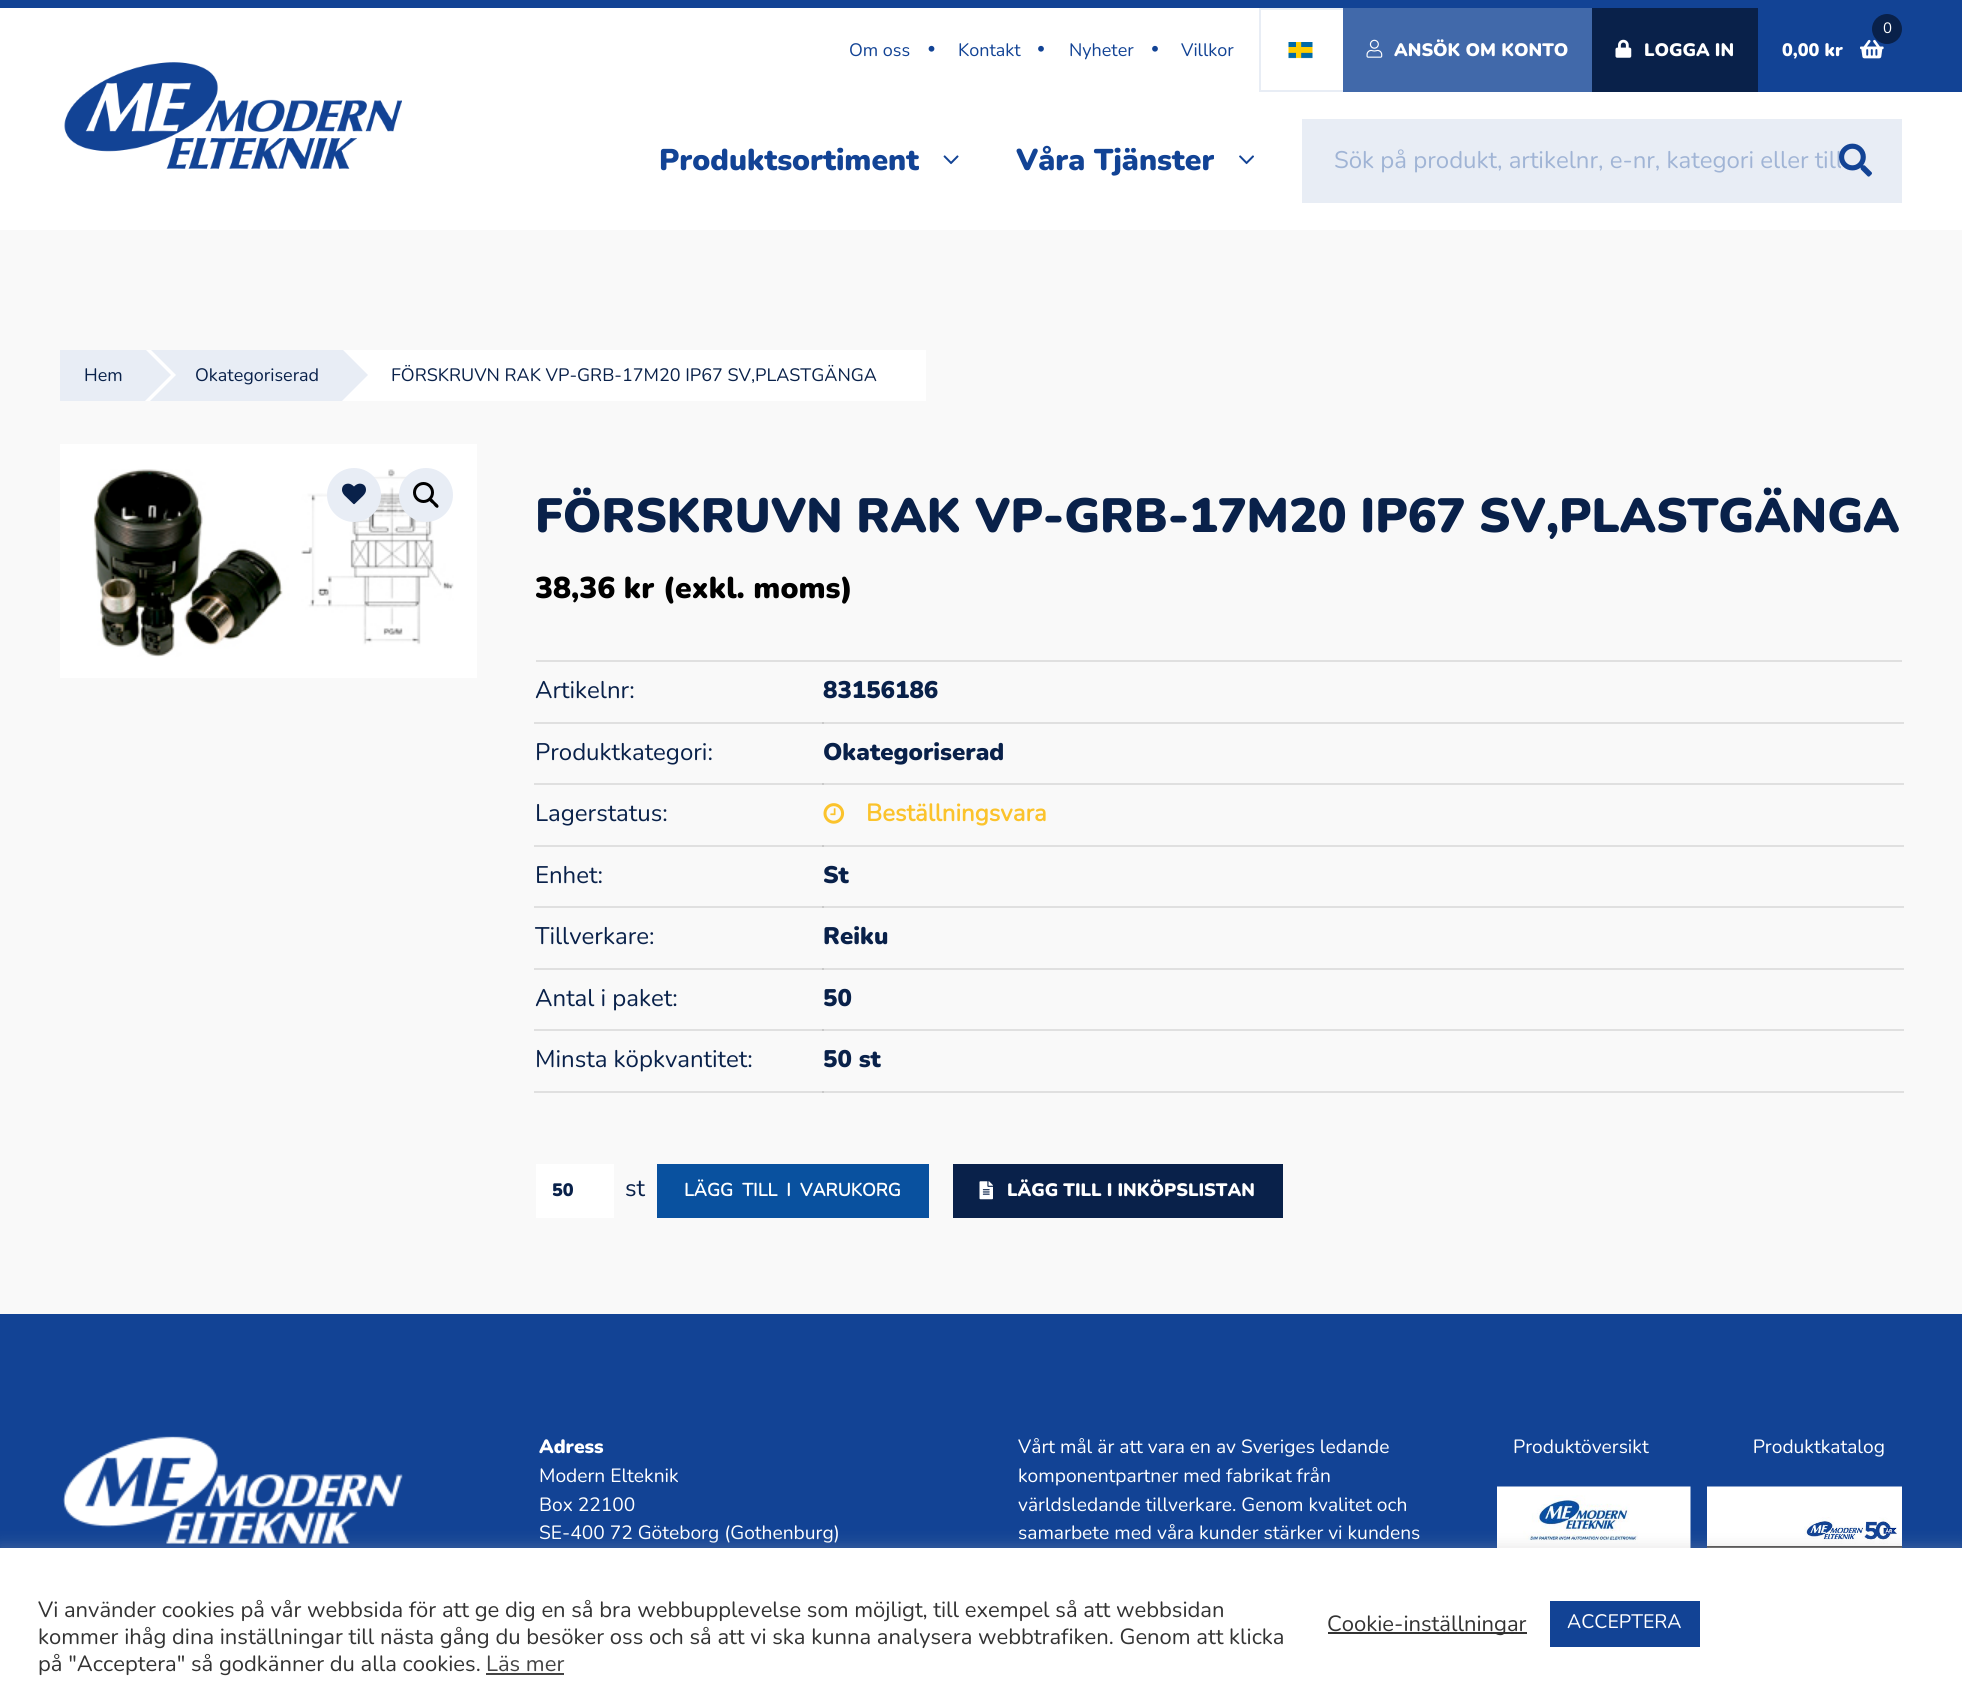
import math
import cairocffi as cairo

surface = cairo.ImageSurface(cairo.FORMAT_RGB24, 1962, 1697)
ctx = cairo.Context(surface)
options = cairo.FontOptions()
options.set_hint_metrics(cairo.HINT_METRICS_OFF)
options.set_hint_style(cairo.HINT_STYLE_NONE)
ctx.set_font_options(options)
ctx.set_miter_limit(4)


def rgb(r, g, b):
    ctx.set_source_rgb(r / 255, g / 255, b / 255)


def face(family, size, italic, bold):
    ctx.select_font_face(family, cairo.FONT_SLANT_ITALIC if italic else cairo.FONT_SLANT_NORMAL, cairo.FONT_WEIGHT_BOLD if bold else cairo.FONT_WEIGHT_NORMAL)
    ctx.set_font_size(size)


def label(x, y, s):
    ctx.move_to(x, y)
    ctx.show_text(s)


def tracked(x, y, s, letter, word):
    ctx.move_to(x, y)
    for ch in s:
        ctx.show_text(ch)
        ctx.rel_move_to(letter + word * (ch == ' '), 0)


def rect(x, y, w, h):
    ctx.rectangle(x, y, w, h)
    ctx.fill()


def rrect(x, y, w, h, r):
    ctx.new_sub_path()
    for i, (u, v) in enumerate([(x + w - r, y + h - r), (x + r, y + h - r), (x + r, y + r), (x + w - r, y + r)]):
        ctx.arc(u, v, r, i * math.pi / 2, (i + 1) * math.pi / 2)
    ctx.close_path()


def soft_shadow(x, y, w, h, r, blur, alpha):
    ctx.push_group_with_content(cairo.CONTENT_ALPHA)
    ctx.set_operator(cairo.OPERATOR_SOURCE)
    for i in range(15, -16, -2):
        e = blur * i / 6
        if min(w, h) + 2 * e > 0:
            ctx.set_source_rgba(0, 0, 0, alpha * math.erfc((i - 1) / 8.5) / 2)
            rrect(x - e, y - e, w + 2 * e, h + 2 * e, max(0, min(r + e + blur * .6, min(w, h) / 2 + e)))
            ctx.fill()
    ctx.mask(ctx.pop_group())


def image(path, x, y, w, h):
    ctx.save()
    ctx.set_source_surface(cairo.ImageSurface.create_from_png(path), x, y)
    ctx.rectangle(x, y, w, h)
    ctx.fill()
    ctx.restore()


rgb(249, 249, 249)
ctx.paint()
rgb(224, 224, 224)
rect(534, 722, 1370, 2)
rect(534, 783, 1370, 2)
rect(534, 845, 1370, 2)
rect(534, 906, 1370, 2)
rect(534, 968, 1370, 2)
rect(534, 1029, 1370, 2)
rect(534, 1091, 1370, 2)
rgb(255, 255, 255)
rect(0, 92, 1962, 138)
gradient = cairo.LinearGradient(0, 50, 1962, 49)
gradient.add_color_stop_rgba(0, 1, 1, 1, 1)
gradient.add_color_stop_rgba(0.75, 1, 1, 1, 1)
gradient.add_color_stop_rgba(0.76, 0.071, 0.263, 0.584, 1)
ctx.set_source(gradient)
rect(0, 8, 1962, 84)
rgb(18, 67, 149)
rect(0, 0, 1962, 8)
face('Nunito', 18, 0, 0)
label(849, 56, 'Om oss')
image('image0.png', 928, 45, 7, 7)
label(958, 56, 'Kontakt')
image('image1.png', 1038, 45, 6, 7)
label(1069, 56, 'Nyheter')
image('image1.png', 1152, 45, 6, 7)
label(1181, 56, 'Villkor')
rgb(232, 237, 245)
rect(1259, 8, 84, 2)
rect(1259, 90, 84, 2)
rect(1259, 8, 2, 84)
image('image2.png', 1288, 42, 25, 17)
rgb(65, 105, 170)
rect(1343, 8, 249, 84)
image('image3.png', 1366, 39, 17, 19)
face('Nunito Black', 18, 0, 0)
rgb(255, 255, 255)
label(1394, 56, 'ANSÖK OM KONTO')
rgb(9, 33, 74)
rect(1592, 8, 166, 84)
image('image4.png', 1615, 39, 17, 19)
rgb(255, 255, 255)
label(1644, 56, 'LOGGA IN')
image('image5.png', 1860, 39, 24, 20)
rgb(9, 33, 74)
ctx.arc(1887, 29, 15, 0, 2 * math.pi)
ctx.fill()
face('Nunito', 15, 0, 0)
rgb(255, 255, 255)
label(1883, 33, '0')
face('Nunito Black', 18, 0, 0)
label(1782, 56, '0,00 kr')
image('image6.png', 64, 62, 338, 107)
face('Nunito Black', 30, 0, 0)
rgb(18, 67, 149)
label(659, 170, 'Produktsortiment')
image('image7.png', 943, 155, 16, 10)
label(1016, 170, 'Våra Tjänster')
image('image8.png', 1239, 155, 15, 10)
rgb(232, 237, 245)
rect(1302, 119, 600, 84)
ctx.save()
ctx.rectangle(1334, 144, 507, 33)
ctx.clip()
face('Nunito', 24, 0, 0)
rgb(160, 180, 213)
label(1334, 168, 'Sök på produkt, artikelnr, e-nr, kategori eller till')
ctx.restore()
image('image9.png', 1839, 143, 33, 34)
rect(60, 350, 63, 51)
rect(150, 350, 170, 51)
ctx.save()
ctx.rectangle(60, 350, 1842, 51)
ctx.clip()
rgb(255, 255, 255)
ctx.new_path()
ctx.move_to(128, 423)
ctx.line_to(128, 327)
ctx.line_to(176, 375)
ctx.close_path()
ctx.fill()
rgb(232, 237, 245)
ctx.new_path()
ctx.move_to(123, 423)
ctx.line_to(123, 327)
ctx.line_to(171, 375)
ctx.close_path()
ctx.fill()
ctx.restore()
face('Nunito', 18, 0, 0)
rgb(9, 33, 74)
label(84, 381, 'Hem')
label(195, 381, 'Okategoriserad')
rgb(255, 255, 255)
rect(342, 350, 584, 51)
ctx.save()
ctx.rectangle(60, 350, 1842, 51)
ctx.clip()
rgb(232, 237, 245)
ctx.new_path()
ctx.move_to(320, 423)
ctx.line_to(320, 327)
ctx.line_to(368, 375)
ctx.close_path()
ctx.fill()
ctx.restore()
rgb(9, 33, 74)
label(391, 381, 'FÖRSKRUVN RAK VP-GRB-17M20 IP67 SV,PLASTGÄNGA')
rgb(255, 255, 255)
rect(60, 444, 417, 234)
image('image10.png', 93, 469, 361, 188)
rgb(232, 237, 245)
ctx.arc(354, 495, 27, 0, 2 * math.pi)
ctx.fill()
image('image11.png', 342, 483, 24, 22)
ctx.arc(426, 495, 27, 0, 2 * math.pi)
ctx.fill()
ctx.arc(423.5, 492.5, 9, 0, 2 * math.pi)
rgb(0, 0, 0)
ctx.set_line_width(3)
ctx.stroke()
ctx.new_path()
ctx.move_to(429.5, 499)
ctx.curve_to(431.5, 497, 434, 501, 435, 502)
ctx.curve_to(436, 503, 440, 505.5, 438, 507.5)
ctx.curve_to(436.5, 509, 433.5, 505, 433, 504)
ctx.curve_to(432, 503.5, 428, 500.5, 429.5, 499)
ctx.close_path()
ctx.fill()
face('Nunito Black', 48, 0, 0)
rgb(9, 33, 74)
label(535, 532, 'FÖRSKRUVN RAK VP-GRB-17M20 IP67 SV,PLASTGÄNGA')
face('Nunito Black', 30, 0, 0)
rgb(0, 0, 0)
label(535, 598, '38,36 kr (exkl. moms)')
rgb(224, 224, 224)
rect(536, 660, 1366, 2)
face('Nunito', 24, 0, 0)
rgb(9, 33, 74)
label(535, 698, 'Artikelnr:')
rgb(202, 202, 202)
rect(822, 722, 2, 2)
face('Nunito Black', 24, 0, 0)
rgb(9, 33, 74)
label(823, 698, '83156186')
face('Nunito', 24, 0, 0)
label(535, 760, 'Produktkategori:')
rgb(202, 202, 202)
rect(822, 783, 2, 2)
face('Nunito Black', 24, 0, 0)
rgb(9, 33, 74)
label(823, 760, 'Okategoriserad')
face('Nunito', 24, 0, 0)
label(535, 821, 'Lagerstatus:')
rgb(202, 202, 202)
rect(822, 845, 2, 2)
image('image12.png', 823, 803, 22, 21)
face('Nunito', 24, 0, 1)
rgb(251, 195, 44)
label(866, 821, 'Beställningsvara')
face('Nunito', 24, 0, 0)
rgb(9, 33, 74)
label(535, 883, 'Enhet:')
rgb(202, 202, 202)
rect(822, 906, 2, 2)
face('Nunito Black', 24, 0, 0)
rgb(9, 33, 74)
label(823, 883, 'St')
face('Nunito', 24, 0, 0)
label(535, 944, 'Tillverkare:')
rgb(202, 202, 202)
rect(822, 968, 2, 2)
face('Nunito Black', 24, 0, 0)
rgb(9, 33, 74)
label(823, 944, 'Reiku')
face('Nunito', 24, 0, 0)
label(535, 1006, 'Antal i paket:')
rgb(202, 202, 202)
rect(822, 1029, 2, 2)
face('Nunito Black', 24, 0, 0)
rgb(9, 33, 74)
label(823, 1006, '50')
face('Nunito', 24, 0, 0)
label(535, 1067, 'Minsta köpkvantitet:')
rgb(202, 202, 202)
rect(822, 1091, 2, 2)
face('Nunito Black', 24, 0, 0)
rgb(9, 33, 74)
label(823, 1067, '50 st')
rgb(255, 255, 255)
rect(536, 1164, 78, 54)
face('Nunito Black', 18, 0, 0)
rgb(9, 33, 74)
label(552, 1196, '50')
face('Nunito', 24, 0, 0)
label(625, 1196, 'st')
rgb(9, 81, 159)
rect(657, 1164, 272, 54)
face('Nunito', 18, 0, 1)
rgb(255, 255, 255)
tracked(684, 1196, 'LÄGG TILL I VARUKORG', 0, 4.5)
rgb(9, 33, 74)
rect(953, 1164, 330, 54)
image('image13.png', 979, 1181, 14, 19)
face('Nunito Black', 18, 0, 0)
rgb(255, 255, 255)
label(1007, 1196, 'LÄGG TILL I INKÖPSLISTAN')
gradient = cairo.LinearGradient(981, 1314, 981, 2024)
gradient.add_color_stop_rgba(0, 0.071, 0.263, 0.584, 1)
gradient.add_color_stop_rgba(0.3, 0.071, 0.263, 0.584, 1)
gradient.add_color_stop_rgba(1, 0.255, 0.412, 0.667, 1)
ctx.set_source(gradient)
rect(0, 1314, 1962, 234)
image('image14.png', 63, 1436, 340, 108)
face('Nunito Black', 19.2, 0, 0)
rgb(255, 255, 255)
label(539, 1453, 'Adress')
face('Nunito', 19.2, 0, 0)
label(539, 1482, 'Modern Elteknik')
label(539, 1511, 'Box 22100')
label(539, 1539, 'SE-400 72 Göteborg (Gothenburg)')
label(1018, 1453, 'Vårt mål är att vara en av Sveriges ledande')
label(1018, 1482, 'komponentpartner med fabrikat från')
label(1018, 1511, 'världsledande tillverkare. Genom kvalitet och')
label(1018, 1539, 'samarbete med våra kunder stärker vi kundens')
label(1513, 1453, 'Produktöversikt                     Produktkatalog')
image('image15.png', 1497, 1486, 194, 62)
image('image16.png', 1707, 1486, 195, 62)
rgb(172, 171, 171)
soft_shadow(0, 1547, 1962, 150, 0, 7.5, 0.3)
rgb(255, 255, 255)
rect(0, 1548, 1962, 149)
face('Nunito', 22, 0, 0)
rgb(51, 51, 51)
label(38, 1617, 'Vi använder cookies på vår webbsida för att ge dig en så bra webbupplevelse som möjligt, till exempel så att webbsidan')
label(38, 1644, 'kommer ihåg dina inställningar till nästa gång du besöker oss och så att vi ska kunna analysera webbtrafiken. Genom att klicka')
label(38, 1671, 'på "Acceptera" så godkänner du alla cookies.')
rgb(68, 68, 68)
label(486, 1671, 'Läs mer')
rect(486, 1673, 78, 2)
rgb(51, 51, 51)
rect(1328, 1632, 199, 2)
label(1327, 1631, 'Cookie-inställningar')
rgb(18, 67, 149)
rect(1550, 1601, 150, 46)
face('Nunito', 19.5, 0, 0)
rgb(255, 255, 255)
label(1567, 1628, 'ACCEPTERA')
surface.write_to_png('render.png')
